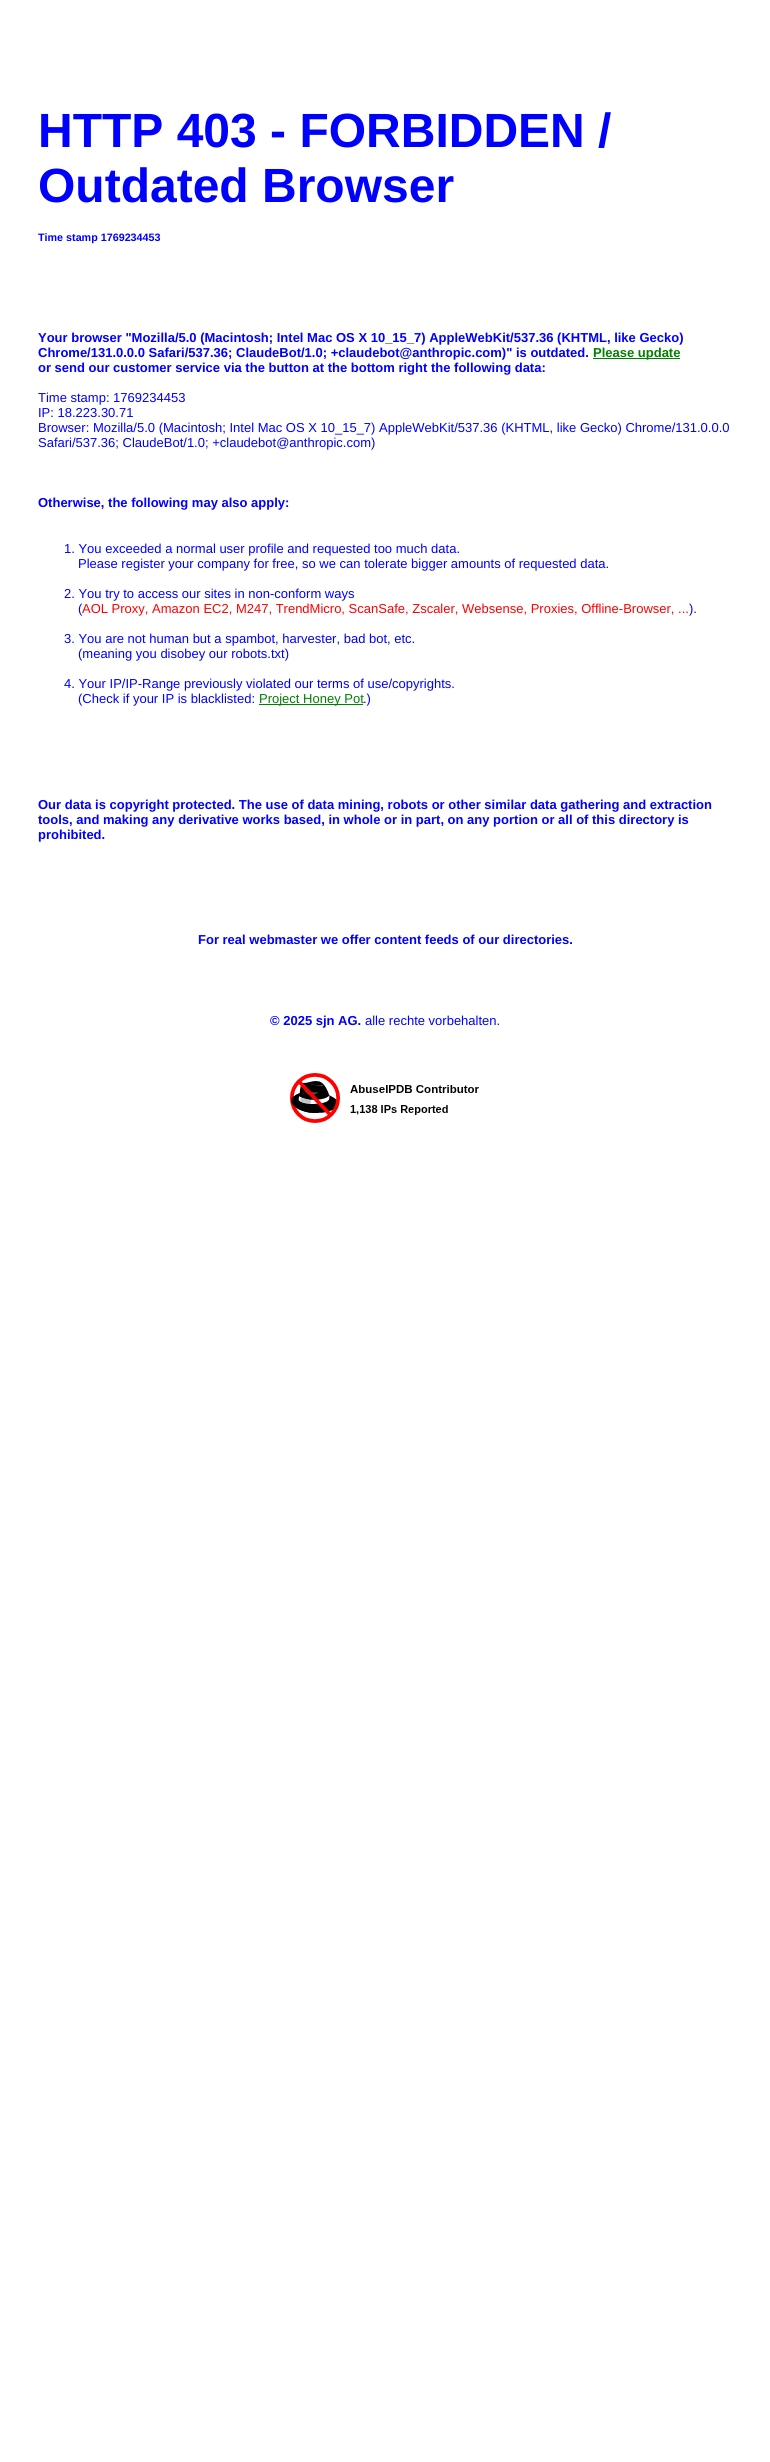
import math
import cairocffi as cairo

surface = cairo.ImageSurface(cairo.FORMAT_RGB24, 770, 2462)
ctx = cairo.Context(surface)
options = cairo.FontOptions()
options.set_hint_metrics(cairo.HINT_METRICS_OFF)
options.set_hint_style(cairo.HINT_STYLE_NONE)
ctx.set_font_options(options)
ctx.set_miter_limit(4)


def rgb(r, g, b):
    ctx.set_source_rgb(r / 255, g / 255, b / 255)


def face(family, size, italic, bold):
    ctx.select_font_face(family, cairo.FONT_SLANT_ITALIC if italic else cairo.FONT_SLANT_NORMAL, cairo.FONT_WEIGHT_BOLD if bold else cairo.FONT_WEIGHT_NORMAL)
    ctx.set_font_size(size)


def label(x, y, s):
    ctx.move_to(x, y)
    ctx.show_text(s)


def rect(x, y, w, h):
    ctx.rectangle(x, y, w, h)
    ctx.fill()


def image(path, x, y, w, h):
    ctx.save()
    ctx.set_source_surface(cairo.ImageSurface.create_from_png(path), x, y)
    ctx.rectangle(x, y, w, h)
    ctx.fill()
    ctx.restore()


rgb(255, 255, 255)
ctx.paint()
face('Liberation Sans', 48, 0, 1)
rgb(0, 0, 255)
label(38, 147, 'HTTP 403 - FORBIDDEN /')
label(38, 202, 'Outdated Browser')
face('Liberation Sans', 10.75, 0, 1)
label(38, 241, 'Time stamp 1769234453')
face('Liberation Sans', 13, 0, 1)
label(38, 342, 'Your browser "Mozilla/5.0 (Macintosh; Intel Mac OS X 10_15_7) AppleWebKit/537.36 (KHTML, like Gecko)')
label(38, 357, 'Chrome/131.0.0.0 Safari/537.36; ClaudeBot/1.0; +claudebot@anthropic.com)" is outdated.')
rgb(0, 128, 0)
rect(593, 358, 87, 1)
label(593, 357, 'Please update')
rgb(0, 0, 255)
label(38, 372, 'or send our customer service via the button at the bottom right the following data:')
face('Liberation Sans', 13, 0, 0)
label(38, 402, 'Time stamp: 1769234453')
label(38, 417, 'IP: 18.223.30.71')
label(38, 432, 'Browser: Mozilla/5.0 (Macintosh; Intel Mac OS X 10_15_7) AppleWebKit/537.36 (KHTML, like Gecko) Chrome/131.0.0.0')
label(38, 447, 'Safari/537.36; ClaudeBot/1.0; +claudebot@anthropic.com)')
face('Liberation Sans', 13, 0, 1)
label(38, 507, 'Otherwise, the following may also apply:')
face('Liberation Sans', 13, 0, 0)
label(64, 553, '1. You exceeded a normal user profile and requested too much data.')
label(78, 568, 'Please register your company for free, so we can tolerate bigger amounts of requested data.')
label(64, 598, '2. You try to access our sites in non-conform ways')
label(78, 613, '(')
rgb(255, 0, 0)
label(82, 613, 'AOL Proxy, Amazon EC2, M247, TrendMicro, ScanSafe, Zscaler, Websense, Proxies, Offline-Browser, ...')
rgb(0, 0, 255)
label(689, 613, ').')
label(64, 643, '3. You are not human but a spambot, harvester, bad bot, etc.')
label(78, 658, '(meaning you disobey our robots.txt)')
label(64, 688, '4. Your IP/IP-Range previously violated our terms of use/copyrights.')
label(78, 703, '(Check if your IP is blacklisted:')
rgb(0, 128, 0)
rect(259, 704, 104, 1)
label(259, 703, 'Project Honey Pot')
rgb(0, 0, 255)
label(363, 703, '.)')
face('Liberation Sans', 13, 0, 1)
label(38, 809, 'Our data is copyright protected. The use of data mining, robots or other similar data gathering and extraction')
label(38, 824, 'tools, and making any derivative works based, in whole or in part, on any portion or all of this directory is')
label(38, 839, 'prohibited.')
label(198, 944, 'For real webmaster we offer content feeds of our directories.')
label(270, 1025, '© 2025 sjn AG.')
face('Liberation Sans', 13, 0, 0)
label(365, 1025, 'alle rechte vorbehalten.')
image('image0.png', 290, 1073, 189, 50)
surface.write_to_png('render.png')
